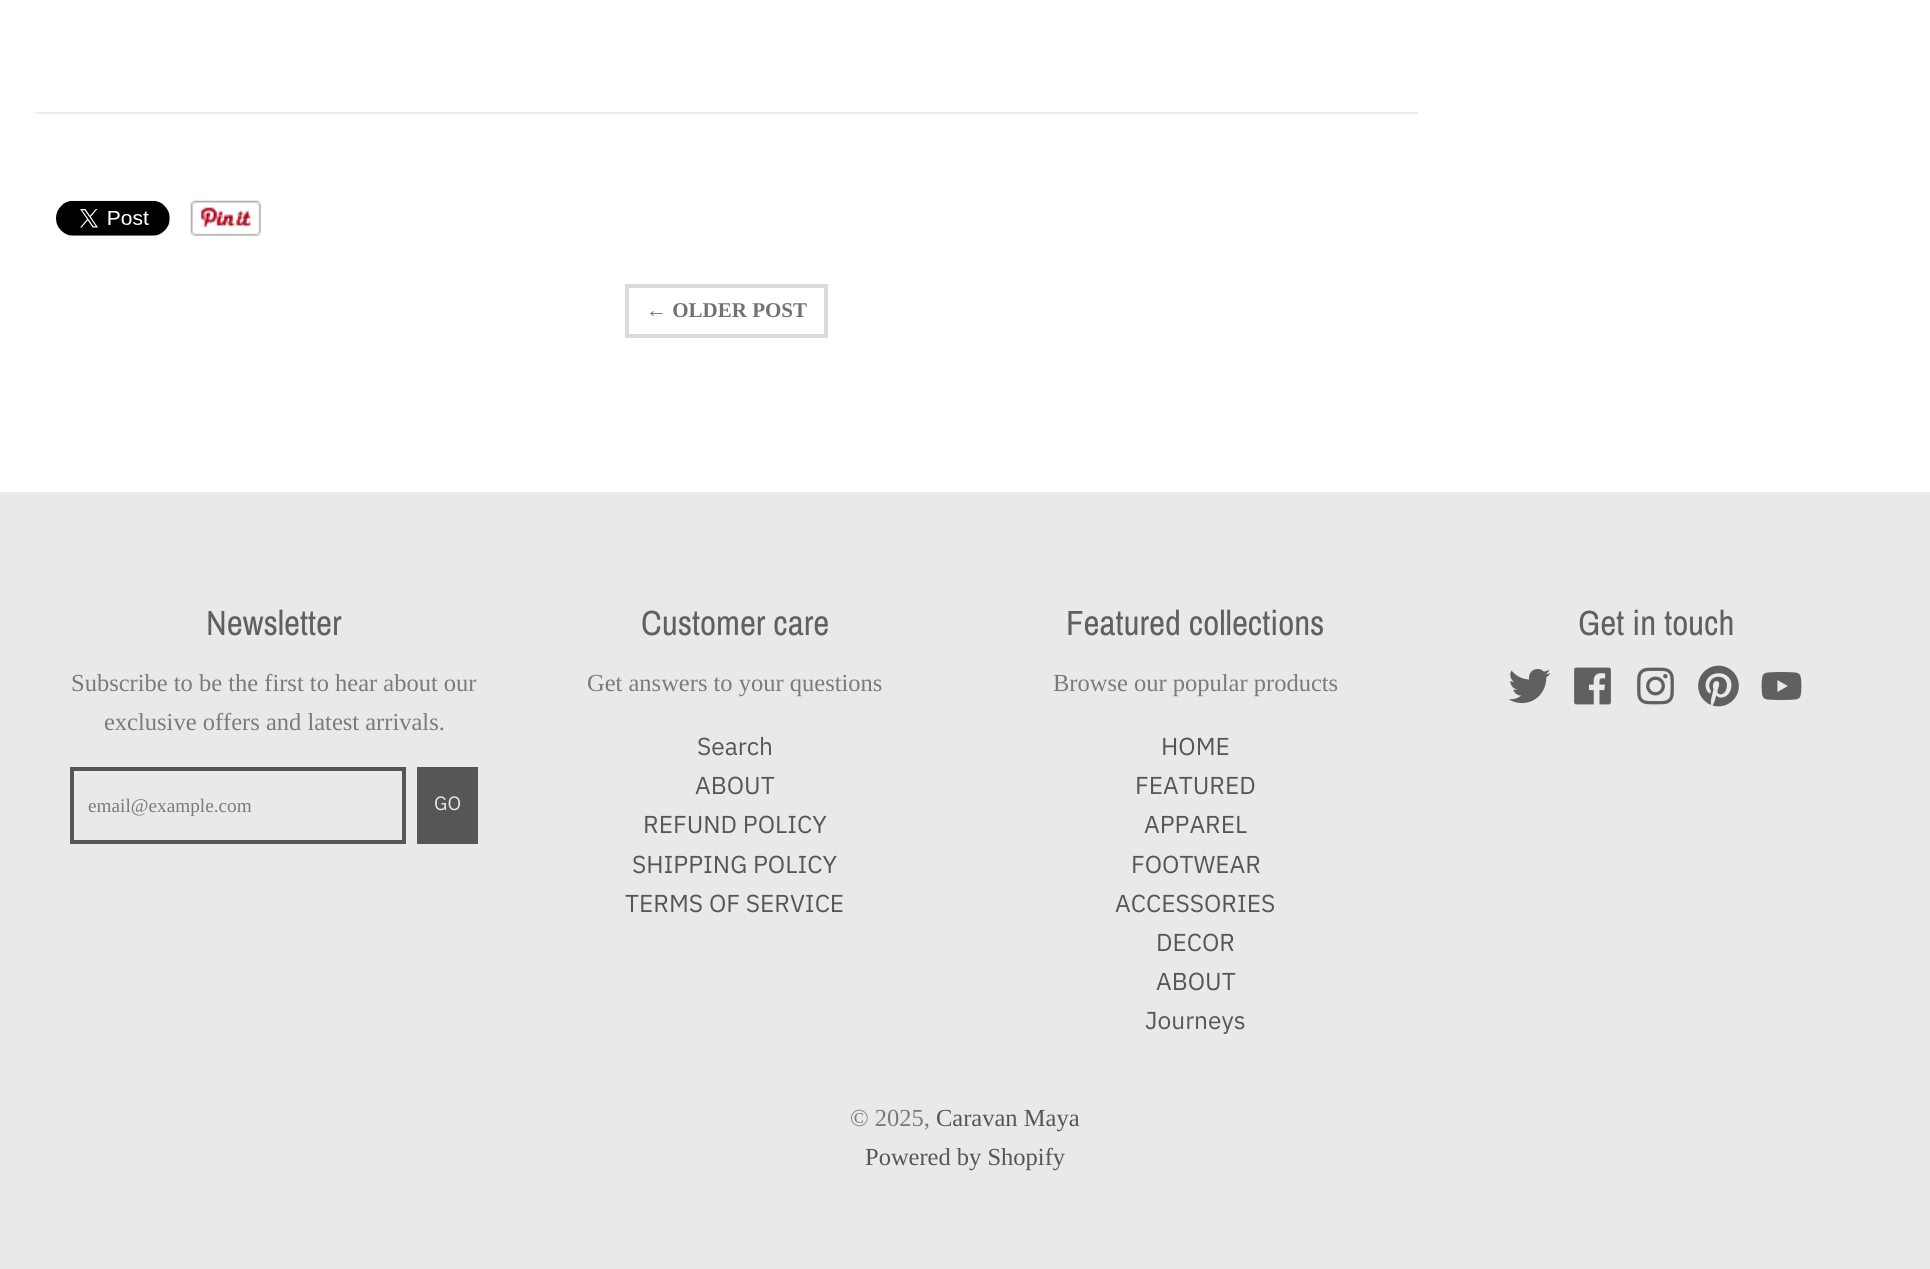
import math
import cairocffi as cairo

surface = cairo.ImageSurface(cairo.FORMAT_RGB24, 1930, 1269)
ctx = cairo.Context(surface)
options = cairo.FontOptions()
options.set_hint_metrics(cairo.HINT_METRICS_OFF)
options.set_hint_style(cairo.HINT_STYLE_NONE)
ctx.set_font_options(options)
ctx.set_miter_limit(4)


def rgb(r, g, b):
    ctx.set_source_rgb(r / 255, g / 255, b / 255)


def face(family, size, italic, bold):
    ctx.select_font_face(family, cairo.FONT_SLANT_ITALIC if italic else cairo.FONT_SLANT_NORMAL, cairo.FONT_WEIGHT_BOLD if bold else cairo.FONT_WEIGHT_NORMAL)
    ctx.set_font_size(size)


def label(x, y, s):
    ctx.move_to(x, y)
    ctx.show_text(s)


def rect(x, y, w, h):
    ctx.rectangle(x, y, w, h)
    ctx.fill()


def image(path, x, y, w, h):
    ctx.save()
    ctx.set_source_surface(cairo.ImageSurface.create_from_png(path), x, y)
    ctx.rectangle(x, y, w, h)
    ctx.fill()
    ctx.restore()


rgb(255, 255, 255)
ctx.paint()
rgb(237, 237, 237)
rect(0, 492, 1930, 2)
rect(35, 112, 1383, 2)
image('image0.png', 56, 200, 114, 36)
image('image1.png', 190, 200, 71, 36)
ctx.rectangle(627, 286, 199, 50)
rgb(219, 219, 219)
ctx.set_line_width(4)
ctx.stroke()
face('Liberation Serif', 21, 0, 1)
rgb(114, 114, 114)
label(646, 317, '← OLDER POST')
rgb(233, 233, 233)
rect(0, 494, 1930, 775)
face('Archivo Narrow', 35, 0, 0)
rgb(96, 96, 96)
label(206, 635, 'Newsletter')
face('Liberation Serif', 24.5, 0, 0)
rgb(123, 123, 123)
label(71, 691, 'Subscribe to be the first to hear about our')
label(104, 730, 'exclusive offers and latest arrivals.')
ctx.rectangle(72, 769, 332, 73)
rgb(86, 86, 86)
ctx.stroke()
ctx.save()
ctx.rectangle(88, 795, 301, 21)
ctx.clip()
face('Liberation Serif', 19.25, 0, 0)
rgb(123, 123, 123)
label(88, 812, 'email@example.com')
ctx.restore()
rect(417, 767, 61, 77)
face('IBM Plex Sans', 19.25, 0, 0)
rgb(233, 233, 233)
label(434, 810, 'GO')
face('Archivo Narrow', 35, 0, 0)
rgb(96, 96, 96)
label(641, 635, 'Customer care')
face('Liberation Serif', 24.5, 0, 0)
rgb(123, 123, 123)
label(587, 691, 'Get answers to your questions')
face('IBM Plex Sans', 24.5, 0, 0)
rgb(86, 86, 86)
label(697, 755, 'Search')
label(695, 794, 'ABOUT')
label(643, 833, 'REFUND POLICY')
label(632, 873, 'SHIPPING POLICY')
label(625, 912, 'TERMS OF SERVICE')
face('Archivo Narrow', 35, 0, 0)
rgb(96, 96, 96)
label(1066, 635, 'Featured collections')
face('Liberation Serif', 24.5, 0, 0)
rgb(123, 123, 123)
label(1053, 691, 'Browse our popular products')
face('IBM Plex Sans', 24.5, 0, 0)
rgb(86, 86, 86)
label(1161, 755, 'HOME')
label(1135, 794, 'FEATURED')
label(1144, 833, 'APPAREL')
label(1131, 873, 'FOOTWEAR')
label(1115, 912, 'ACCESSORIES')
label(1156, 951, 'DECOR')
label(1156, 990, 'ABOUT')
label(1145, 1029, 'Journeys')
face('Archivo Narrow', 35, 0, 0)
rgb(96, 96, 96)
label(1578, 635, 'Get in touch')
image('image2.png', 1509, 669, 42, 35)
image('image3.png', 1574, 667, 37, 38)
image('image4.png', 1637, 667, 37, 38)
image('image5.png', 1698, 665, 41, 42)
image('image6.png', 1761, 672, 41, 28)
face('Liberation Serif', 24.5, 0, 0)
rgb(123, 123, 123)
label(850, 1126, '© 2025,')
rgb(86, 86, 86)
label(936, 1126, 'Caravan Maya')
label(865, 1165, 'Powered by Shopify')
surface.write_to_png('render.png')
